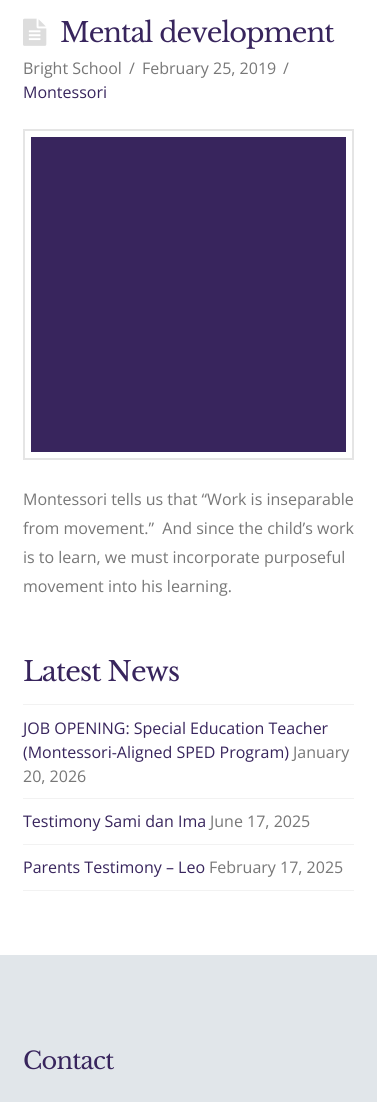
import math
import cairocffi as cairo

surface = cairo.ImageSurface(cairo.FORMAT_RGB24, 377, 1102)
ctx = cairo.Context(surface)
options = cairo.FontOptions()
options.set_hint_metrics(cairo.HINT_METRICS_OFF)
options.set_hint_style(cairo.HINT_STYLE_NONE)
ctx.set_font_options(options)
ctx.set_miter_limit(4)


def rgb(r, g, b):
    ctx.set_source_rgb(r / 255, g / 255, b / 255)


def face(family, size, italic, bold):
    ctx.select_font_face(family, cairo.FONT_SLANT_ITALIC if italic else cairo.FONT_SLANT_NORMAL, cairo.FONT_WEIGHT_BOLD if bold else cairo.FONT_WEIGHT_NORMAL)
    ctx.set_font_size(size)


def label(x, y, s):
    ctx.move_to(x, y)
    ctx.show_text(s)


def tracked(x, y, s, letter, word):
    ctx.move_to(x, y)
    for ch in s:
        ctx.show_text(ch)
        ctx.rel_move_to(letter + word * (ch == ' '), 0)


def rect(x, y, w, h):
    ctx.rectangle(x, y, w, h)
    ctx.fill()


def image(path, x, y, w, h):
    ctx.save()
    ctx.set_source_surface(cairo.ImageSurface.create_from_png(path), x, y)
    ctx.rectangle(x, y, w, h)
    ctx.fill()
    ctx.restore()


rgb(255, 255, 255)
ctx.paint()
image('image0.png', 23, 18, 24, 28)
face('Libre Baskerville', 27.25, 0, 0)
rgb(56, 37, 93)
tracked(60, 42, 'Mental development', -1, 0)
face('Open Sans', 16, 0, 0)
rgb(119, 119, 119)
label(23, 74, 'Bright School')
label(129, 74, '/')
label(142, 74, 'February 25, 2019')
label(283, 74, '/')
rgb(56, 37, 93)
label(23, 98, 'Montessori')
ctx.rectangle(24, 130, 329, 329)
rgb(229, 229, 229)
ctx.stroke()
rgb(56, 37, 93)
rect(31, 137, 315, 315)
rgb(119, 119, 119)
label(23, 505, 'Montessori tells us that “Work is inseparable')
label(23, 534, 'from movement.”  And since the child’s work')
label(23, 563, 'is to learn, we must incorporate purposeful')
label(23, 592, 'movement into his learning.')
face('Libre Baskerville', 27.25, 0, 0)
rgb(56, 37, 93)
tracked(23, 681, 'Latest News', -1, 0)
rgb(242, 242, 242)
rect(23, 704, 331, 1)
rect(23, 798, 331, 1)
face('Open Sans', 16, 0, 0)
rgb(56, 37, 93)
label(23, 734, 'JOB OPENING: Special Education Teacher')
label(23, 758, '(Montessori-Aligned SPED Program)')
rgb(119, 119, 119)
label(293, 758, 'January')
label(23, 782, '20, 2026')
rgb(242, 242, 242)
rect(23, 844, 331, 1)
rgb(56, 37, 93)
label(23, 827, 'Testimony Sami dan Ima')
rgb(119, 119, 119)
label(210, 827, 'June 17, 2025')
rgb(242, 242, 242)
rect(23, 890, 331, 1)
rgb(56, 37, 93)
label(23, 873, 'Parents Testimony – Leo')
rgb(119, 119, 119)
label(209, 873, 'February 17, 2025')
rgb(225, 230, 234)
rect(0, 955, 377, 147)
face('Libre Baskerville', 24, 0, 0)
rgb(56, 37, 93)
tracked(23, 1069, 'Contact', -0.75, 0)
surface.write_to_png('render.png')
